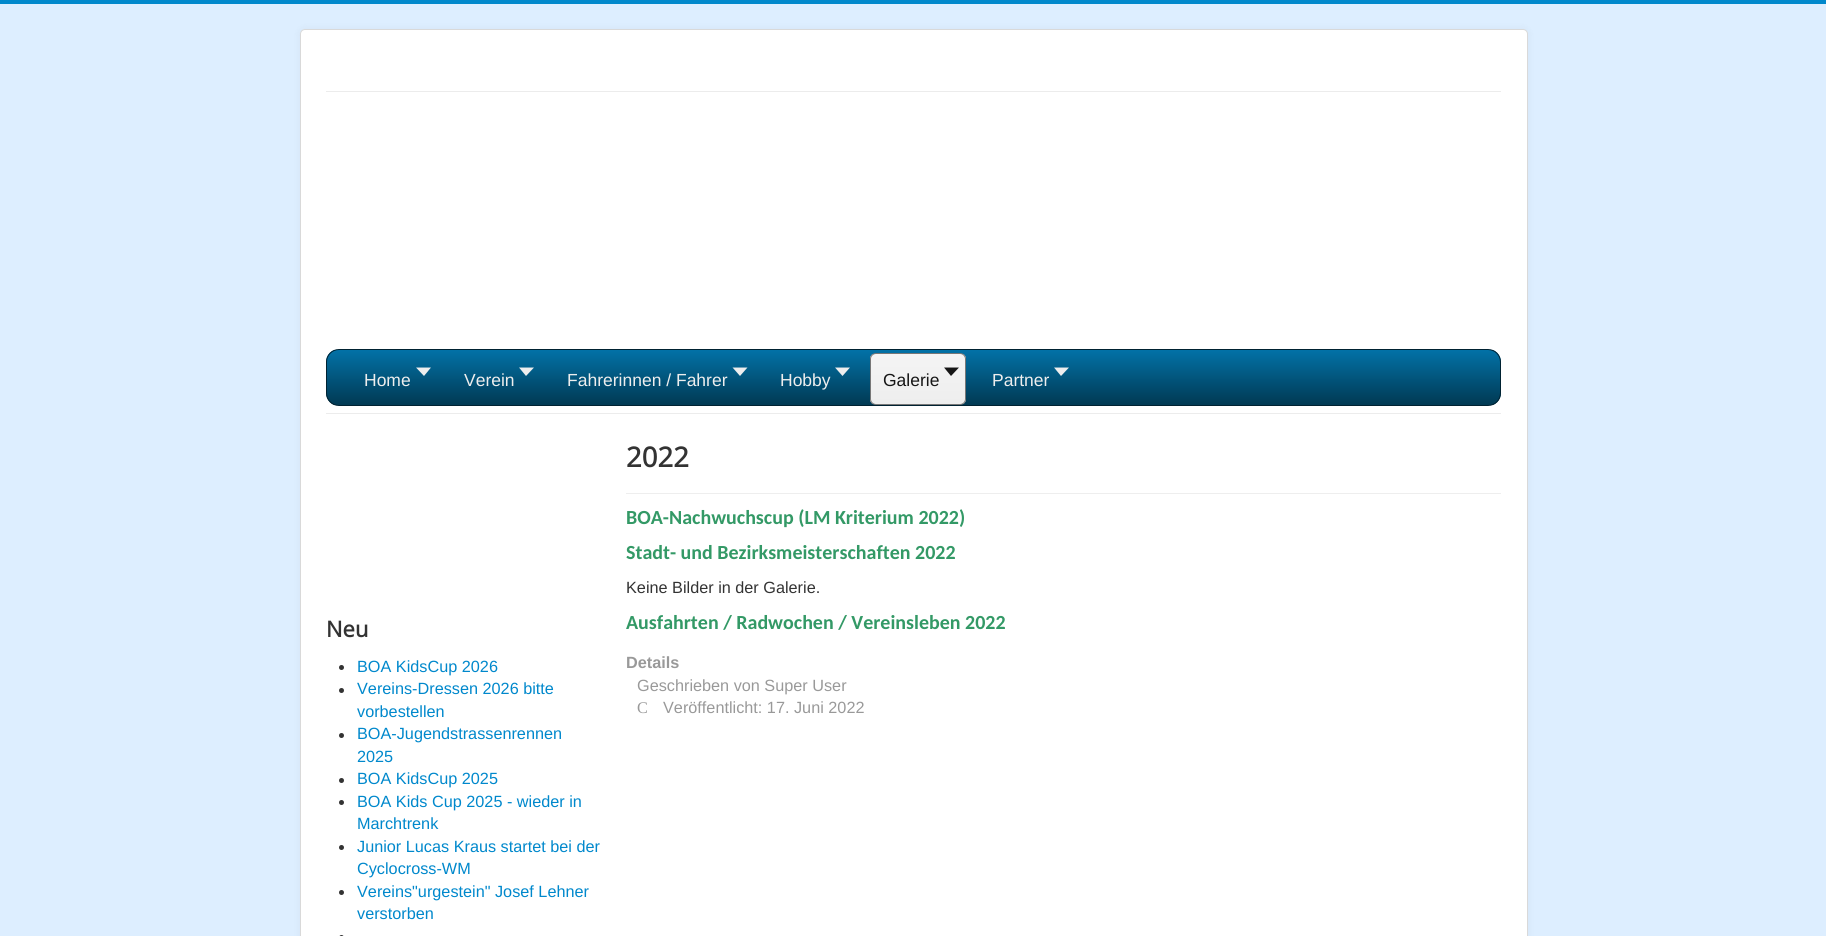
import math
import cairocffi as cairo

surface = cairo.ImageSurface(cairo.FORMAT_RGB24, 1826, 936)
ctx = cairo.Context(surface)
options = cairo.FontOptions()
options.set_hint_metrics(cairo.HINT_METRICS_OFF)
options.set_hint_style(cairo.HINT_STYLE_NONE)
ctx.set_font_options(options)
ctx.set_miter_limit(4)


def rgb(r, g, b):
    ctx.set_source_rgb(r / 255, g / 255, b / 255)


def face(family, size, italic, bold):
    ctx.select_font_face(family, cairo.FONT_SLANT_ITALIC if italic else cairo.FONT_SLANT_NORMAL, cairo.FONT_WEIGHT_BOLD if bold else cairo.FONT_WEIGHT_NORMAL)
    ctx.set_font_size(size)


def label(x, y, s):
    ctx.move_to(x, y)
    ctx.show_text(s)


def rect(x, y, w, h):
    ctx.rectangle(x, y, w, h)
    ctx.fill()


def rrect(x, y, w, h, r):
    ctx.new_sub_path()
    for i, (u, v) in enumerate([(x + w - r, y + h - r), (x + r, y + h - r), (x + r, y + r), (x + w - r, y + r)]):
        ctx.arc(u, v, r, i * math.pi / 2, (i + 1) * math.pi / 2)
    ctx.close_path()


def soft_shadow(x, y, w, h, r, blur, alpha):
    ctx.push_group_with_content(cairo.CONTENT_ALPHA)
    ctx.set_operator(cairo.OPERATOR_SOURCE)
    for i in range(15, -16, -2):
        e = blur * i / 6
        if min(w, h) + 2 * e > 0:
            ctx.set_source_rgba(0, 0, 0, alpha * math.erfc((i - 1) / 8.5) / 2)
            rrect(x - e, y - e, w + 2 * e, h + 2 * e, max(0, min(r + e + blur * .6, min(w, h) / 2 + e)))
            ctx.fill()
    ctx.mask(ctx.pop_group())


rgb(221, 238, 255)
ctx.paint()
rgb(0, 136, 204)
rect(0, 0, 1826, 4)
rgb(0, 0, 0)
soft_shadow(300, 29, 1228, 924, 5, 4, 0.05)
rgb(255, 255, 255)
rrect(300, 29, 1228, 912, 5)
ctx.fill()
rrect(300.5, 29.5, 1227, 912, 4.5)
ctx.set_source_rgba(0, 0, 0, 0.15)
ctx.set_line_width(1)
ctx.stroke()
rgb(236, 236, 236)
rect(326, 91, 1175, 1)
rect(326, 413, 1175, 1)
ctx.save()
rrect(326, 349, 1175, 57, 13)
ctx.clip()
gradient = cairo.LinearGradient(914, 350, 914, 405)
gradient.add_color_stop_rgba(0, 0.008, 0.447, 0.655, 1)
gradient.add_color_stop_rgba(1, 0.004, 0.224, 0.325, 1)
ctx.set_source(gradient)
rect(326, 350, 1175, 55)
ctx.restore()
rrect(326.5, 349.5, 1174, 56, 12.5)
rgb(0, 34, 50)
ctx.stroke()
rgb(238, 238, 238)
ctx.new_path()
ctx.move_to(416, 367.5)
ctx.line_to(431, 367.5)
ctx.line_to(424, 376)
ctx.close_path()
ctx.fill()
face('Liberation Sans', 17.5, 0, 0)
label(364, 386, 'Home')
ctx.new_path()
ctx.move_to(519, 367.5)
ctx.line_to(534, 367.5)
ctx.line_to(526, 376)
ctx.close_path()
ctx.fill()
label(464, 386, 'Verein')
ctx.new_path()
ctx.move_to(732.5, 367.5)
ctx.line_to(747.5, 367.5)
ctx.line_to(740, 376)
ctx.close_path()
ctx.fill()
label(567, 386, 'Fahrerinnen / Fahrer')
ctx.new_path()
ctx.move_to(835, 367.5)
ctx.line_to(850, 367.5)
ctx.line_to(842.5, 376)
ctx.close_path()
ctx.fill()
label(780, 386, 'Hobby')
ctx.save()
rrect(870, 353, 96, 52, 6)
ctx.clip()
gradient = cairo.LinearGradient(871, 354, 871, 404)
gradient.add_color_stop_rgba(0, 0.957, 0.957, 0.957, 1)
gradient.add_color_stop_rgba(1, 0.933, 0.933, 0.933, 1)
ctx.set_source(gradient)
rect(870, 354, 96, 50)
ctx.restore()
rrect(870.5, 353.5, 95, 51, 5.5)
rgb(119, 119, 119)
ctx.stroke()
rgb(22, 22, 22)
ctx.new_path()
ctx.move_to(944, 367.5)
ctx.line_to(959, 367.5)
ctx.line_to(951, 376)
ctx.close_path()
ctx.fill()
label(883, 386, 'Galerie')
rgb(238, 238, 238)
ctx.new_path()
ctx.move_to(1054, 367.5)
ctx.line_to(1069, 367.5)
ctx.line_to(1061, 376)
ctx.close_path()
ctx.fill()
label(992, 386, 'Partner')
rect(626, 493, 875, 1)
face('Open Sans', 27.5, 0, 1)
rgb(51, 51, 51)
label(626, 467, '2022')
face('Carlito', 20, 0, 1)
rgb(51, 153, 102)
label(626, 524, 'BOA-Nachwuchscup (LM Kriterium 2022)')
label(626, 559, 'Stadt- und Bezirksmeisterschaften 2022')
face('Liberation Sans', 16.25, 0, 0)
rgb(51, 51, 51)
label(626, 593, 'Keine Bilder in der Galerie.')
face('Carlito', 20, 0, 1)
rgb(51, 153, 102)
label(626, 629, 'Ausfahrten / Radwochen / Vereinsleben 2022')
face('Liberation Sans', 16.25, 0, 1)
rgb(153, 153, 153)
label(626, 668, 'Details')
face('Liberation Sans', 16.25, 0, 0)
label(637, 691, 'Geschrieben von Super User')
face('Liberation Serif', 16.25, 0, 0)
label(637, 713, 'C')
face('Liberation Sans', 16.25, 0, 0)
label(663, 713, 'Veröffentlicht: 17. Juni 2022')
face('Open Sans', 22, 0, 1)
rgb(51, 51, 51)
label(326, 637, 'Neu')
ctx.new_path()
ctx.arc(341.5, 667.5, 2.5, 0, 2 * math.pi)
ctx.fill()
face('Liberation Sans', 16.25, 0, 0)
rgb(0, 136, 204)
label(357, 672, 'BOA KidsCup 2026')
rgb(51, 51, 51)
ctx.new_path()
ctx.arc(341.5, 690.5, 2.5, 0, 2 * math.pi)
ctx.fill()
rgb(0, 136, 204)
label(357, 694, 'Vereins-Dressen 2026 bitte')
label(357, 717, 'vorbestellen')
rgb(51, 51, 51)
ctx.new_path()
ctx.arc(341.5, 735.5, 2.5, 0, 2 * math.pi)
ctx.fill()
rgb(0, 136, 204)
label(357, 739, 'BOA-Jugendstrassenrennen')
label(357, 762, '2025')
rgb(51, 51, 51)
ctx.new_path()
ctx.arc(341.5, 780.5, 2.5, 0, 2 * math.pi)
ctx.fill()
rgb(0, 136, 204)
label(357, 784, 'BOA KidsCup 2025')
rgb(51, 51, 51)
ctx.new_path()
ctx.arc(341.5, 802.5, 2.5, 0, 2 * math.pi)
ctx.fill()
rgb(0, 136, 204)
label(357, 807, 'BOA Kids Cup 2025 - wieder in')
label(357, 829, 'Marchtrenk')
rgb(51, 51, 51)
ctx.new_path()
ctx.arc(341.5, 847.5, 2.5, 0, 2 * math.pi)
ctx.fill()
rgb(0, 136, 204)
label(357, 852, 'Junior Lucas Kraus startet bei der')
label(357, 874, 'Cyclocross-WM')
rgb(51, 51, 51)
ctx.new_path()
ctx.arc(341.5, 892.5, 2.5, 0, 2 * math.pi)
ctx.fill()
rgb(0, 136, 204)
label(357, 897, 'Vereins"urgestein" Josef Lehner')
label(357, 919, 'verstorben')
rgb(51, 51, 51)
rrect(339, 935, 5, 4, 2.5)
ctx.fill()
surface.write_to_png('render.png')
